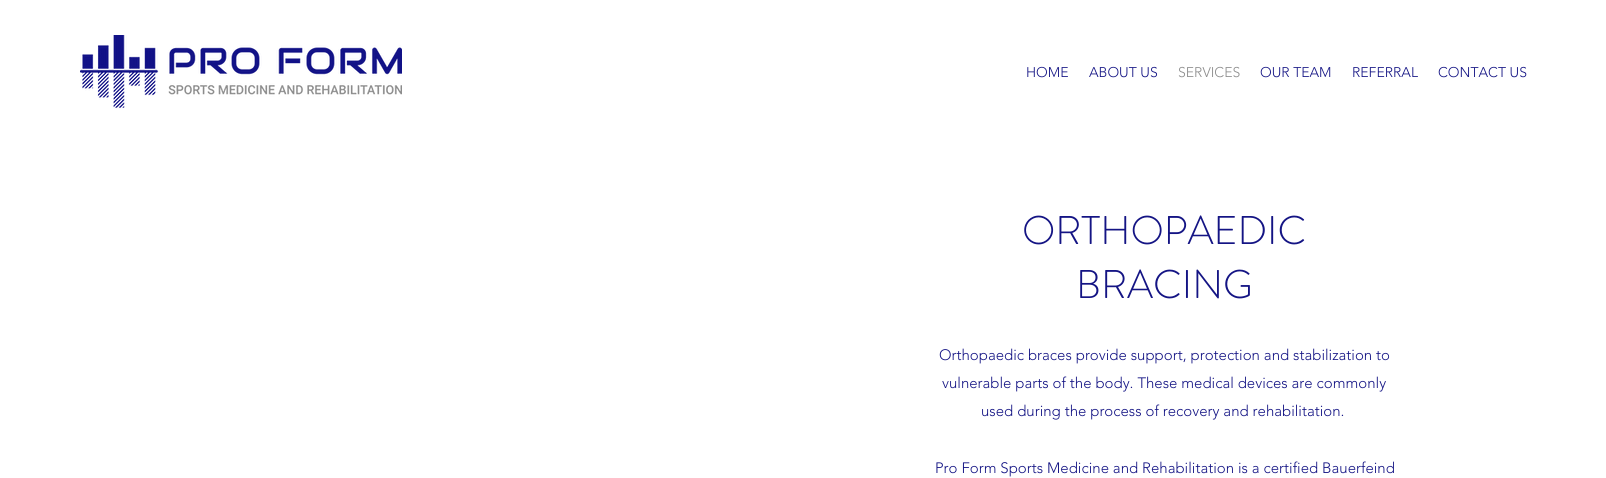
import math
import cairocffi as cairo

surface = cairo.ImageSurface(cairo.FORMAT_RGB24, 1606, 478)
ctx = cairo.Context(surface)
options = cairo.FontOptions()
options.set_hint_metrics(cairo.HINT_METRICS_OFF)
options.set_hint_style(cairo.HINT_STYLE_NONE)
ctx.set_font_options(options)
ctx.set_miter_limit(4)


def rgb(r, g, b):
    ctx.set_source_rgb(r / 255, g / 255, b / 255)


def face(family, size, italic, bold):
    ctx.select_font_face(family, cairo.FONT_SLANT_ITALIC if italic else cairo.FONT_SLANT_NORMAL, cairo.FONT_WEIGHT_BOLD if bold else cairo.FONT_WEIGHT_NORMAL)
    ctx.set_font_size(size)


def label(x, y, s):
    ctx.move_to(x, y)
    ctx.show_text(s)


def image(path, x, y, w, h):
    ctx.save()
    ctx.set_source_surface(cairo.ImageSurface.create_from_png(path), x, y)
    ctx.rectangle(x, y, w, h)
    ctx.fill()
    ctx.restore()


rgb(255, 255, 255)
ctx.paint()
image('image0.png', 80, 35, 322, 74)
face('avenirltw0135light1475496 Light', 14, 0, 0)
rgb(20, 20, 132)
label(1026, 77, 'HOME')
label(1089, 77, 'ABOUT US')
rgb(140, 140, 140)
label(1178, 77, 'SERVICES')
rgb(20, 20, 132)
label(1260, 77, 'OUR TEAM')
label(1352, 77, 'REFERRAL')
label(1438, 77, 'CONTACT US')
face('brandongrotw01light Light', 40, 0, 0)
label(1022, 244, 'ORTHOPAEDIC')
label(1076, 298, 'BRACING')
face('avenirltw0135light1475496 Light', 15, 0, 0)
label(939, 360, 'Orthopaedic braces provide support, protection and stabilization to')
label(942, 388, 'vulnerable parts of the body. These medical devices are commonly')
label(981, 416, 'used during the process of recovery and rehabilitation.')
label(935, 473, 'Pro Form Sports Medicine and Rehabilitation is a certified Bauerfeind')
surface.write_to_png('render.png')
